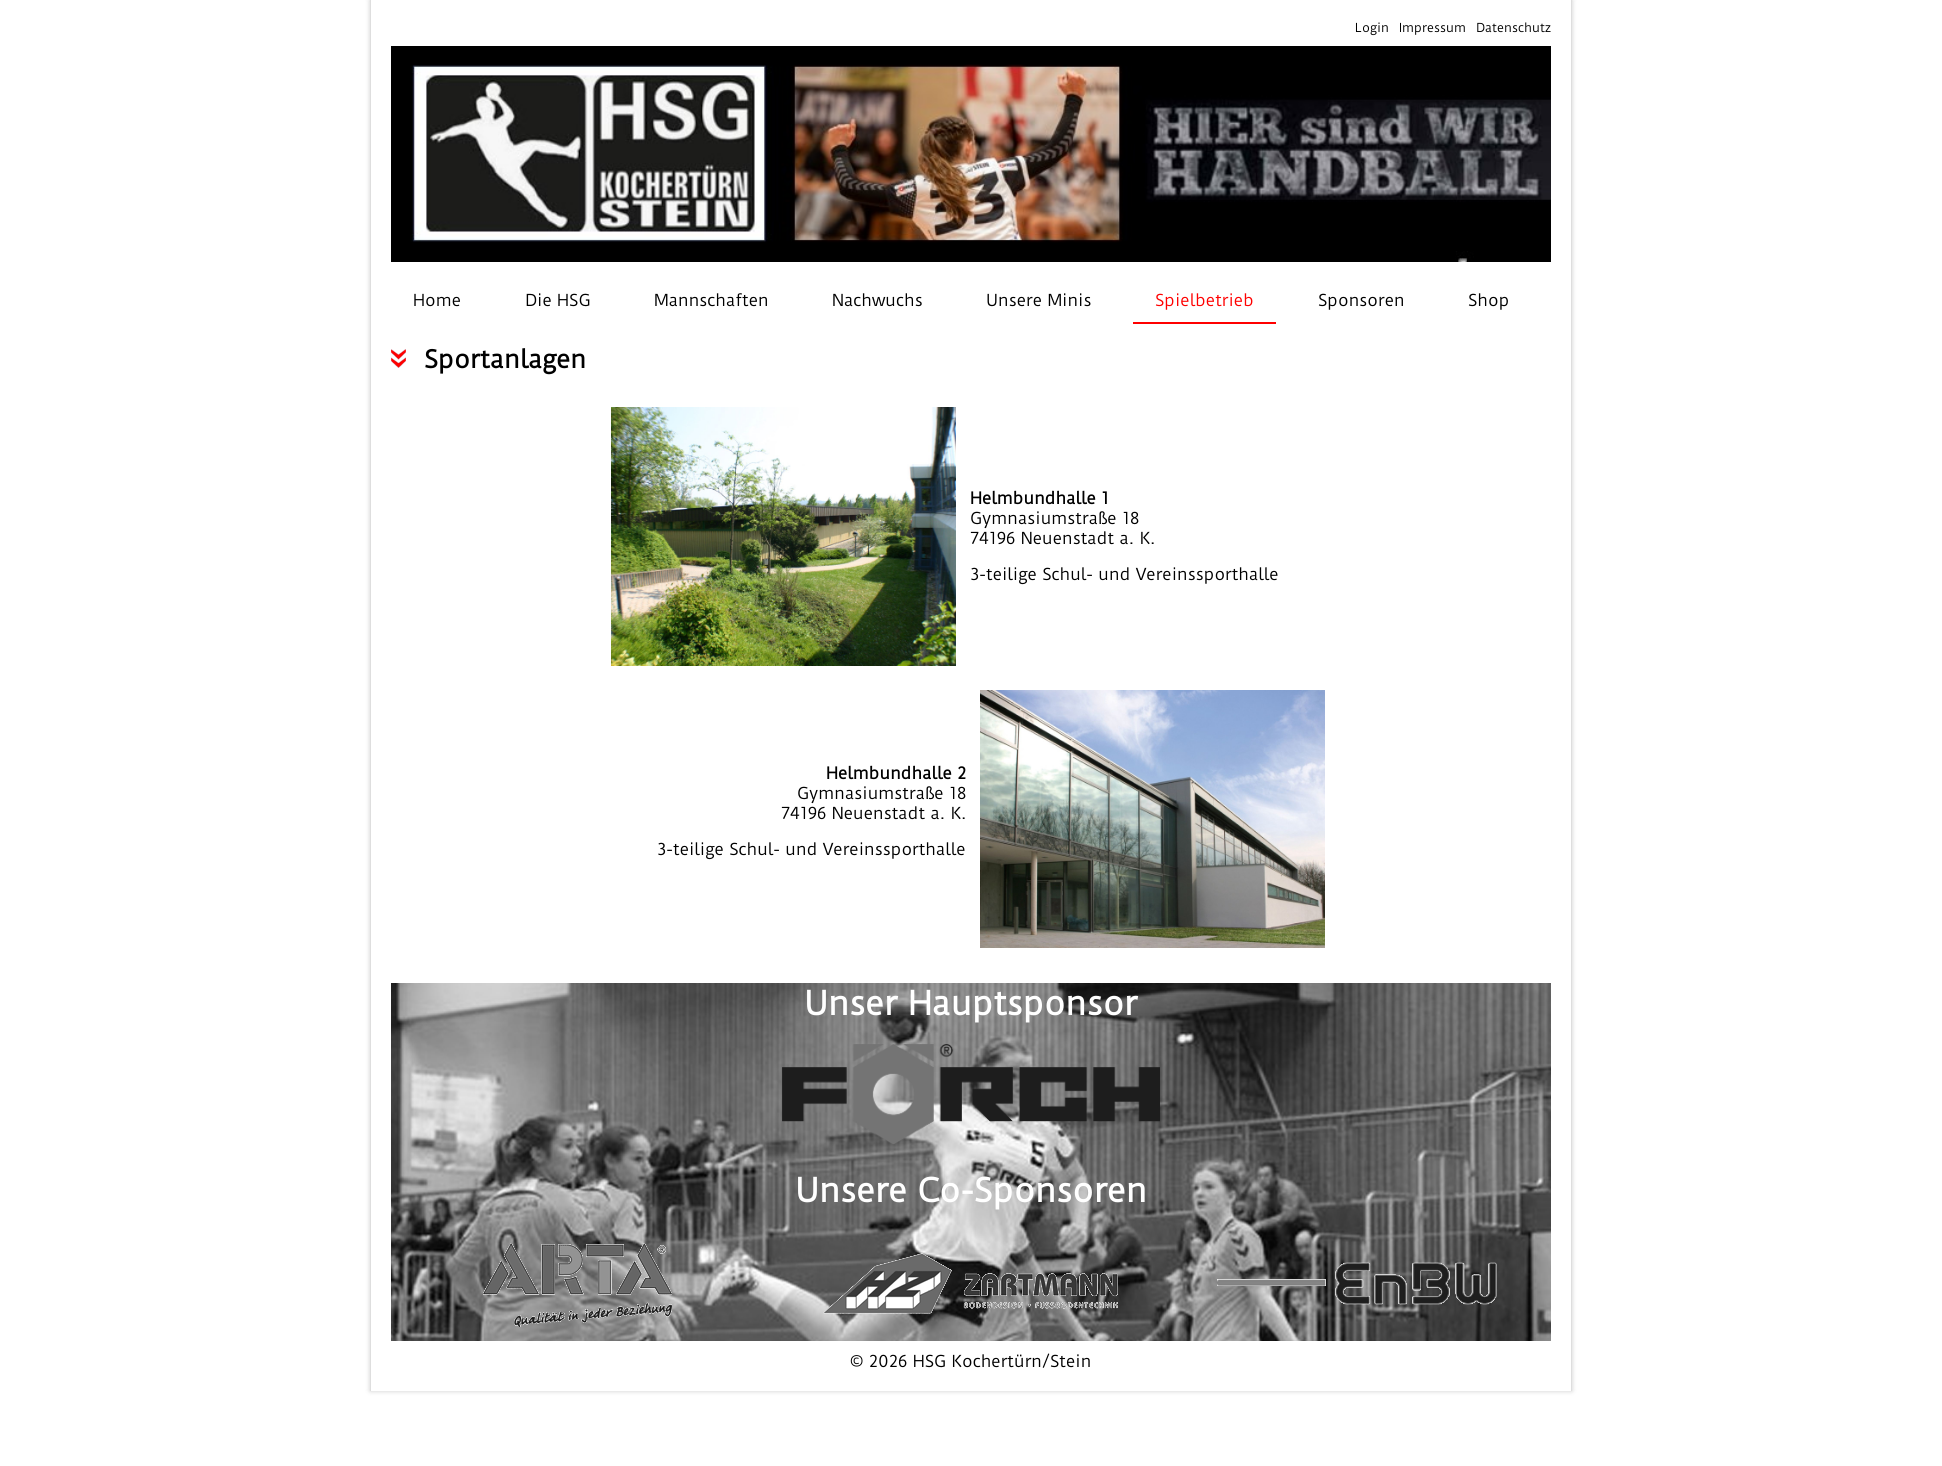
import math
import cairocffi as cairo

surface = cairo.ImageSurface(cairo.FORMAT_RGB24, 1942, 1466)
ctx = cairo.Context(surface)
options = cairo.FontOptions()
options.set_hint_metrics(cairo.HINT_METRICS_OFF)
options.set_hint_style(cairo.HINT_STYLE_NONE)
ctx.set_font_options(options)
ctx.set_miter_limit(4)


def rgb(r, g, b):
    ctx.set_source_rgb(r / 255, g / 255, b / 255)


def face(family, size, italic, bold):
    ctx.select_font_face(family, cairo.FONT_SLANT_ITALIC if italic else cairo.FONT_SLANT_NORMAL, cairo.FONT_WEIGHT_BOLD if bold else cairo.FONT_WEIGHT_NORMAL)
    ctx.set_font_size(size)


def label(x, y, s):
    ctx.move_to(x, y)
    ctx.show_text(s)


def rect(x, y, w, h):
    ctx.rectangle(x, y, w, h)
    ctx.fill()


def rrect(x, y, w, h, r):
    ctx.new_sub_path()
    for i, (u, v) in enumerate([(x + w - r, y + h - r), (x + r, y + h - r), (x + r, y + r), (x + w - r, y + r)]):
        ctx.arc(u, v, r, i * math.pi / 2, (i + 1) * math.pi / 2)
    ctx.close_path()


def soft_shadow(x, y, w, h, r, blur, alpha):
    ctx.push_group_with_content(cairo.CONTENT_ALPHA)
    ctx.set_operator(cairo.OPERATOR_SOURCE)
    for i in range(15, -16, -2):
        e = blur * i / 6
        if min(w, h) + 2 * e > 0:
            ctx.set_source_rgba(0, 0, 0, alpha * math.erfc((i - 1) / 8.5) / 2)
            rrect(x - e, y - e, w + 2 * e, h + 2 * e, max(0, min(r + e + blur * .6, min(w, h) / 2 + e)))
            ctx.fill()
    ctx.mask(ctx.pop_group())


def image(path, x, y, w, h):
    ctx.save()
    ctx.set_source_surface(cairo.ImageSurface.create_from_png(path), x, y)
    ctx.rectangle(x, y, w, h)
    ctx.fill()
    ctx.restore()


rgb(255, 255, 255)
ctx.paint()
ctx.save()
ctx.set_fill_rule(cairo.FILL_RULE_EVEN_ODD)
ctx.new_path()
ctx.move_to(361, 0)
ctx.line_to(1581, 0)
ctx.line_to(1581, 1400)
ctx.line_to(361, 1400)
ctx.close_path()
ctx.move_to(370, 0)
ctx.line_to(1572, 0)
ctx.line_to(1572, 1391)
ctx.line_to(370, 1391)
ctx.close_path()
ctx.clip()
rgb(0, 0, 0)
soft_shadow(370, 0, 1202, 1391, 0, 2.5, 0.2)
ctx.restore()
rgb(222, 222, 222)
rect(1571, 0, 1, 1391)
rect(370, 0, 1, 1391)
face('Duru Sans', 12, 0, 0)
rgb(0, 0, 0)
label(1355, 32, 'Login')
label(1399, 32, 'Impressum')
label(1476, 32, 'Datenschutz')
image('image0.png', 391, 46, 1160, 216)
face('Duru Sans', 16, 0, 0)
label(413, 306, 'Home')
label(525, 306, 'Die HSG')
label(654, 306, 'Mannschaften')
label(832, 306, 'Nachwuchs')
label(986, 306, 'Unsere Minis')
rgb(255, 0, 0)
rect(1133, 322, 143, 2)
label(1155, 306, 'Spielbetrieb')
rgb(0, 0, 0)
label(1318, 306, 'Sponsoren')
label(1468, 306, 'Shop')
image('image1.png', 391, 349, 15, 19)
face('Duru Sans', 24, 0, 1)
label(424, 368, 'Sportanlagen')
image('image2.png', 611, 407, 345, 259)
face('Duru Sans', 16, 0, 1)
label(970, 504, 'Helmbundhalle 1')
face('Duru Sans', 16, 0, 0)
label(970, 524, 'Gymnasiumstraße 18')
label(970, 544, '74196 Neuenstadt a. K.')
label(970, 580, '3-teilige Schul- und Vereinssporthalle')
face('Duru Sans', 16, 0, 1)
label(826, 779, 'Helmbundhalle 2')
face('Duru Sans', 16, 0, 0)
label(797, 799, 'Gymnasiumstraße 18')
label(781, 819, '74196 Neuenstadt a. K.')
label(657, 855, '3-teilige Schul- und Vereinssporthalle')
image('image3.png', 980, 690, 345, 258)
image('image4.png', 391, 983, 1160, 358)
face('Duru Sans', 32, 0, 1)
rgb(255, 255, 255)
label(804, 1015, 'Unser Hauptsponsor')
image('image5.png', 782, 1044, 378, 100)
label(795, 1202, 'Unsere Co-Sponsoren')
image('image6.png', 483, 1243, 189, 84)
image('image7.png', 823, 1253, 295, 61)
image('image8.png', 1217, 1262, 280, 43)
face('Duru Sans', 16, 0, 0)
rgb(0, 0, 0)
label(850, 1367, '© 2026 HSG Kochertürn/Stein')
surface.write_to_png('render.png')
